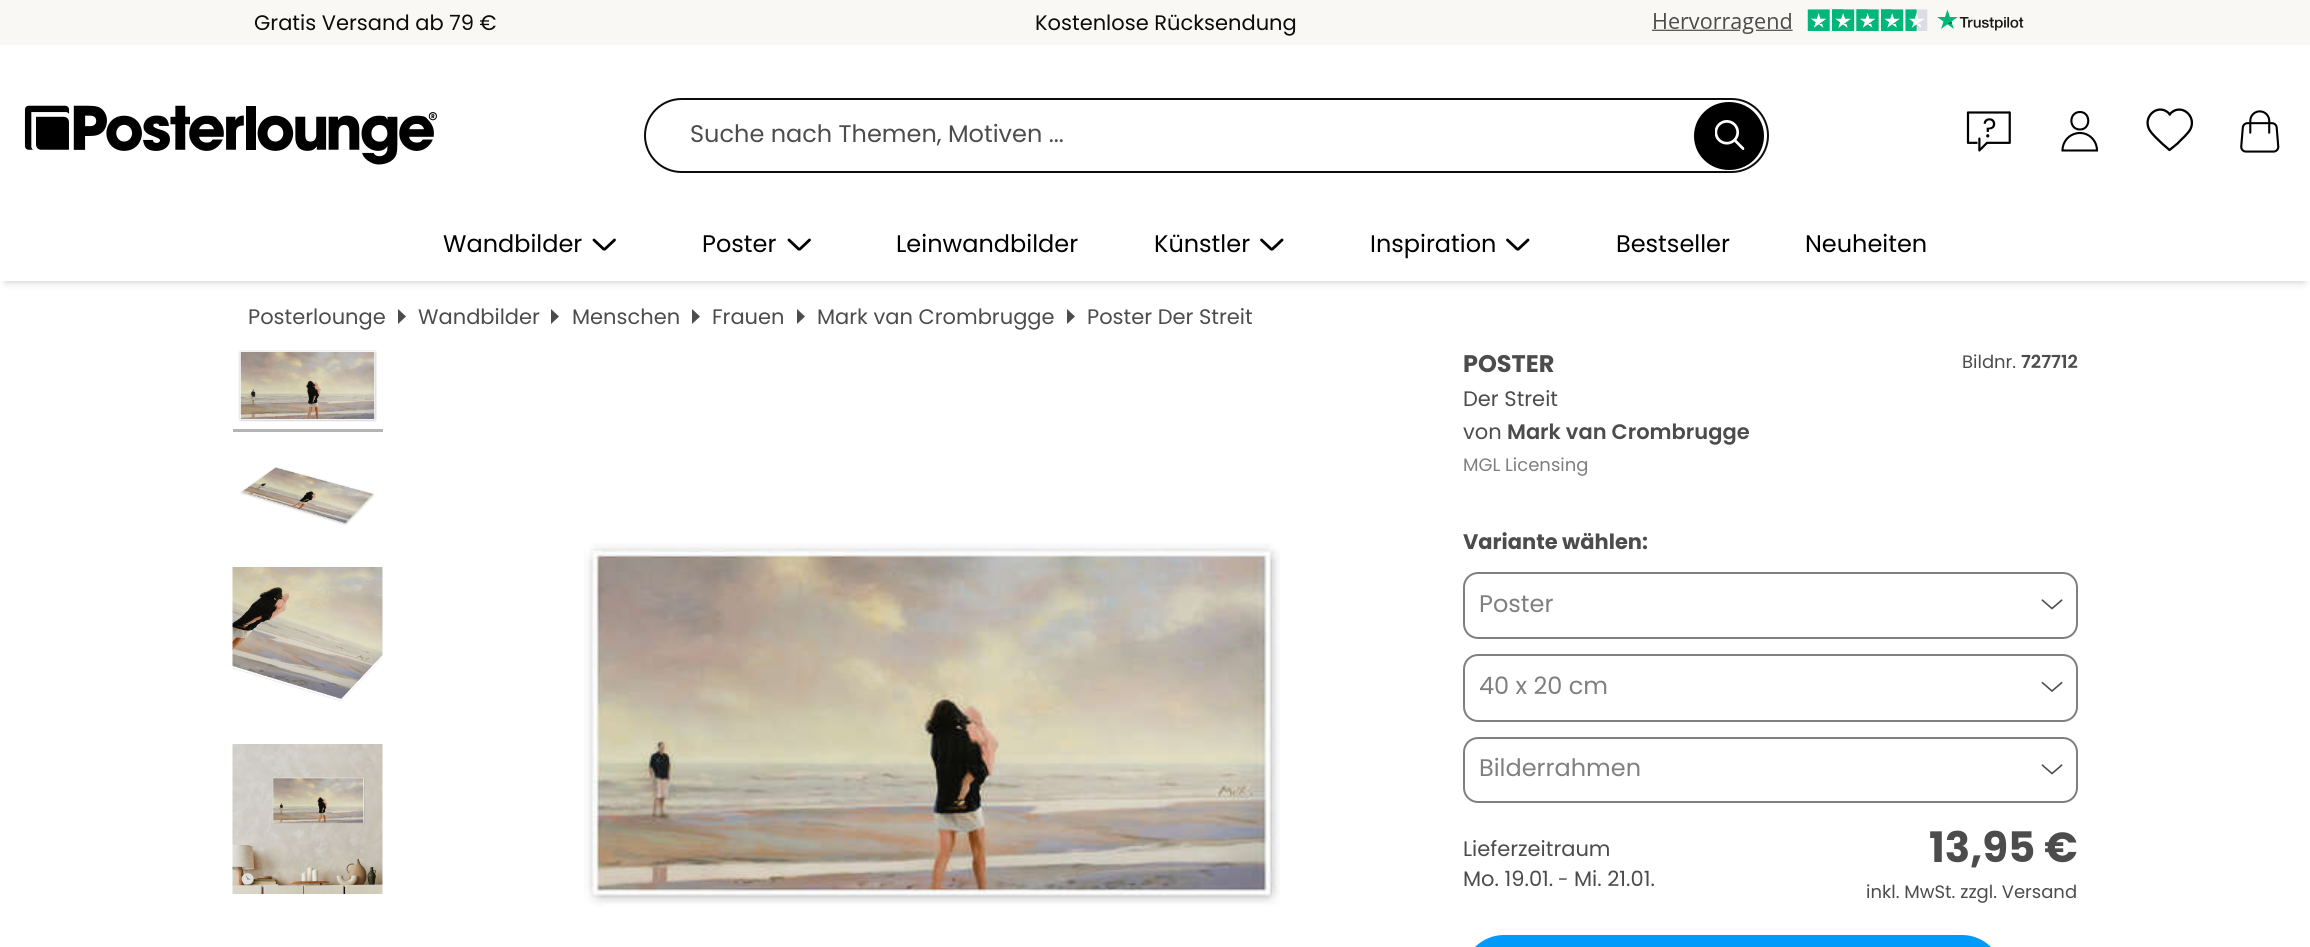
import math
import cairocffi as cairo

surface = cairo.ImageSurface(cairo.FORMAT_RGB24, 2310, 947)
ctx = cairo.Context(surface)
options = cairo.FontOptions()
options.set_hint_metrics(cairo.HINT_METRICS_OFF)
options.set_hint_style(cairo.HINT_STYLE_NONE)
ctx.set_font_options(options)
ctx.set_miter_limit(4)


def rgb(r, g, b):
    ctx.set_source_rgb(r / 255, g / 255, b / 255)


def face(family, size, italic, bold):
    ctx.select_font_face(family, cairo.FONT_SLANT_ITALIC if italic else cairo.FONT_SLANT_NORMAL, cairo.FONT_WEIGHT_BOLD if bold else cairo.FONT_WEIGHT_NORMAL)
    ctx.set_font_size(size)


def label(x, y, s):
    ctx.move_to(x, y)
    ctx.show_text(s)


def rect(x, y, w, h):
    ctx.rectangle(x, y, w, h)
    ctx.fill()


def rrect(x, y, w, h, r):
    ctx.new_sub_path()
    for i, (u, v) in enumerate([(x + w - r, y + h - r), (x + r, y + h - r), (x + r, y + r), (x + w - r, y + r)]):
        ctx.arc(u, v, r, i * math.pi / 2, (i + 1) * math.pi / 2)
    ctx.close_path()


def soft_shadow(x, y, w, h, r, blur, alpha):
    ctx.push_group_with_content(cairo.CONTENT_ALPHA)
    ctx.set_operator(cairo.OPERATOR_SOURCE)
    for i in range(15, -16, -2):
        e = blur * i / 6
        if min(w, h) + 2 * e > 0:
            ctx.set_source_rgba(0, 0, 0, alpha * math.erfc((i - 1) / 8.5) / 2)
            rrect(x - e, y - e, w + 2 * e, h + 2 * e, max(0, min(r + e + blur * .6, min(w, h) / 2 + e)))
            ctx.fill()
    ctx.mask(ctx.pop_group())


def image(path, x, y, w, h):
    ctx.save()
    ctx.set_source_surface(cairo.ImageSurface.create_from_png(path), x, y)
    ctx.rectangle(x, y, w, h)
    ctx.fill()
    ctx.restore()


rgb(255, 255, 255)
ctx.paint()
rgb(0, 0, 0)
soft_shadow(6, 14, 2298, 268, 0, 4, 0.2)
rgb(255, 255, 255)
rect(0, 45, 2310, 236)
rgb(249, 248, 244)
rect(0, 0, 2310, 45)
face('Poppins', 21, 0, 0)
rgb(12, 12, 12)
label(254, 30, 'Gratis Versand ab 79 €')
label(1035, 30, 'Kostenlose Rücksendung')
image('image0.png', 1651, 9, 373, 25)
image('image1.png', 24, 105, 413, 60)
rrect(645, 99, 1123, 73, 36.5)
ctx.stroke()
face('Poppins', 24, 0, 0)
rgb(76, 76, 76)
label(690, 142, 'Suche nach Themen, Motiven ...')
rgb(0, 0, 0)
ctx.new_path()
ctx.move_to(1729, 102)
ctx.curve_to(1748.5, 102, 1764, 117, 1764, 136)
ctx.curve_to(1764, 155, 1748.5, 170, 1729, 170)
ctx.curve_to(1709.5, 170, 1694, 155, 1694, 136)
ctx.curve_to(1694, 117, 1709.5, 102, 1729, 102)
ctx.close_path()
ctx.fill()
image('image2.png', 1715, 120, 30, 30)
image('image3.png', 1966, 111, 45, 41)
ctx.new_path()
ctx.move_to(2080, 129.5)
ctx.curve_to(2091, 129.5, 2091, 112, 2080, 112)
ctx.curve_to(2068.5, 112, 2068.5, 129.5, 2080, 129.5)
ctx.close_path()
ctx.move_to(2097, 150.5)
ctx.curve_to(2097, 141, 2089.5, 133, 2080, 133)
ctx.curve_to(2070, 133, 2062.5, 141, 2062.5, 150.5)
ctx.close_path()
ctx.set_line_width(2.1)
ctx.stroke()
ctx.new_path()
ctx.move_to(2170, 114.5)
ctx.curve_to(2159.5, 102, 2142.5, 115.5, 2149, 129)
ctx.curve_to(2152, 134.5, 2157.5, 139, 2162, 143.5)
ctx.line_to(2169.5, 150)
ctx.line_to(2177.5, 143.5)
ctx.curve_to(2181.5, 139, 2187.5, 134.5, 2190.5, 129)
ctx.curve_to(2197, 115.5, 2180, 102, 2169.5, 114.5)
ctx.close_path()
ctx.set_line_width(2.3)
ctx.set_line_cap(cairo.LINE_CAP_ROUND)
ctx.set_line_join(cairo.LINE_JOIN_ROUND)
ctx.stroke()
image('image4.png', 2240, 110, 40, 43)
label(443, 252, 'Wandbilder')
ctx.new_path()
ctx.move_to(594, 240)
ctx.line_to(603, 248.5)
ctx.curve_to(603.5, 249.5, 605, 249.5, 605.5, 248.5)
ctx.line_to(614.5, 240)
ctx.set_line_width(2.8)
ctx.set_line_join(cairo.LINE_JOIN_MITER)
ctx.stroke()
label(702, 252, 'Poster')
ctx.new_path()
ctx.move_to(789, 240)
ctx.line_to(798, 248.5)
ctx.curve_to(798.5, 249.5, 800, 249.5, 800.5, 248.5)
ctx.line_to(809.5, 240)
ctx.stroke()
label(896, 252, 'Leinwandbilder')
label(1154, 252, 'Künstler')
ctx.new_path()
ctx.move_to(1261.5, 240)
ctx.line_to(1270.5, 248.5)
ctx.curve_to(1271, 249.5, 1272.5, 249.5, 1273, 248.5)
ctx.line_to(1282, 240)
ctx.stroke()
label(1370, 252, 'Inspiration')
ctx.new_path()
ctx.move_to(1507.5, 240)
ctx.line_to(1516.5, 248.5)
ctx.curve_to(1517, 249.5, 1518.5, 249.5, 1519, 248.5)
ctx.line_to(1528, 240)
ctx.stroke()
label(1616, 252, 'Bestseller')
label(1805, 252, 'Neuheiten')
face('Poppins', 21, 0, 0)
rgb(76, 76, 76)
label(248, 324, 'Posterlounge')
ctx.new_path()
ctx.move_to(398, 309)
ctx.line_to(398, 324)
ctx.line_to(406, 316.5)
ctx.close_path()
ctx.fill()
label(418, 324, 'Wandbilder')
ctx.new_path()
ctx.move_to(551, 309)
ctx.line_to(551, 324)
ctx.line_to(559, 316.5)
ctx.close_path()
ctx.fill()
label(572, 324, 'Menschen')
ctx.new_path()
ctx.move_to(692, 309)
ctx.line_to(692, 324)
ctx.line_to(700, 316.5)
ctx.close_path()
ctx.fill()
label(712, 324, 'Frauen')
ctx.new_path()
ctx.move_to(797, 309)
ctx.line_to(797, 324)
ctx.line_to(805, 316.5)
ctx.close_path()
ctx.fill()
label(817, 324, 'Mark van Crombrugge')
ctx.new_path()
ctx.move_to(1067, 309)
ctx.line_to(1067, 324)
ctx.line_to(1075, 316.5)
ctx.close_path()
ctx.fill()
label(1087, 324, 'Poster Der Streit')
image('image5.png', 238, 350, 139, 72)
rgb(180, 180, 180)
rect(233, 429, 150, 3)
image('image6.png', 240, 467, 135, 59)
image('image7.png', 232, 567, 151, 135)
image('image8.png', 232, 744, 151, 150)
image('image9.png', 584, 543, 696, 364)
face('Poppins', 24, 0, 1)
rgb(76, 76, 76)
label(1463, 372, 'POSTER')
face('Poppins', 18, 0, 0)
label(1962, 368, 'Bildnr.')
face('Poppins SemiBold', 18, 0, 0)
label(2021, 368, '727712')
face('Poppins', 21, 0, 0)
label(1463, 406, 'Der Streit')
label(1463, 439, 'von')
face('Poppins SemiBold', 21, 0, 0)
label(1507, 439, 'Mark van Crombrugge')
face('Poppins', 18, 0, 0)
rgb(127, 127, 127)
label(1463, 471, 'MGL Licensing')
face('Poppins', 21, 0, 1)
rgb(76, 76, 76)
label(1463, 549, 'Variante wählen:')
image('image10.png', 2041, 599, 22, 11)
rrect(1464, 573, 613, 65, 14)
rgb(127, 127, 127)
ctx.set_line_width(2)
ctx.set_line_cap(cairo.LINE_CAP_BUTT)
ctx.stroke()
face('Poppins', 24, 0, 0)
label(1479, 612, 'Poster')
image('image11.png', 2041, 681, 22, 11)
rrect(1464, 655, 613, 66, 14)
ctx.stroke()
label(1479, 694, '40 x 20 cm')
image('image10.png', 2041, 764, 22, 11)
rrect(1464, 738, 613, 64, 14)
ctx.stroke()
label(1479, 776, 'Bilderrahmen')
face('Poppins', 21, 0, 0)
rgb(76, 76, 76)
label(1463, 856, 'Lieferzeitraum')
label(1463, 886, 'Mo. 19.01.')
face('Poppins', 19, 0, 0)
label(1558, 886, '-')
face('Poppins', 21, 0, 0)
label(1574, 886, 'Mi. 21.01.')
face('Poppins', 42, 0, 1)
label(1929, 862, '13,95 €')
face('Poppins', 18, 0, 0)
label(1866, 898, 'inkl. MwSt. zzgl. Versand')
rgb(0, 155, 250)
rrect(1463, 935, 540, 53, 41)
ctx.fill()
surface.write_to_png('render.png')
